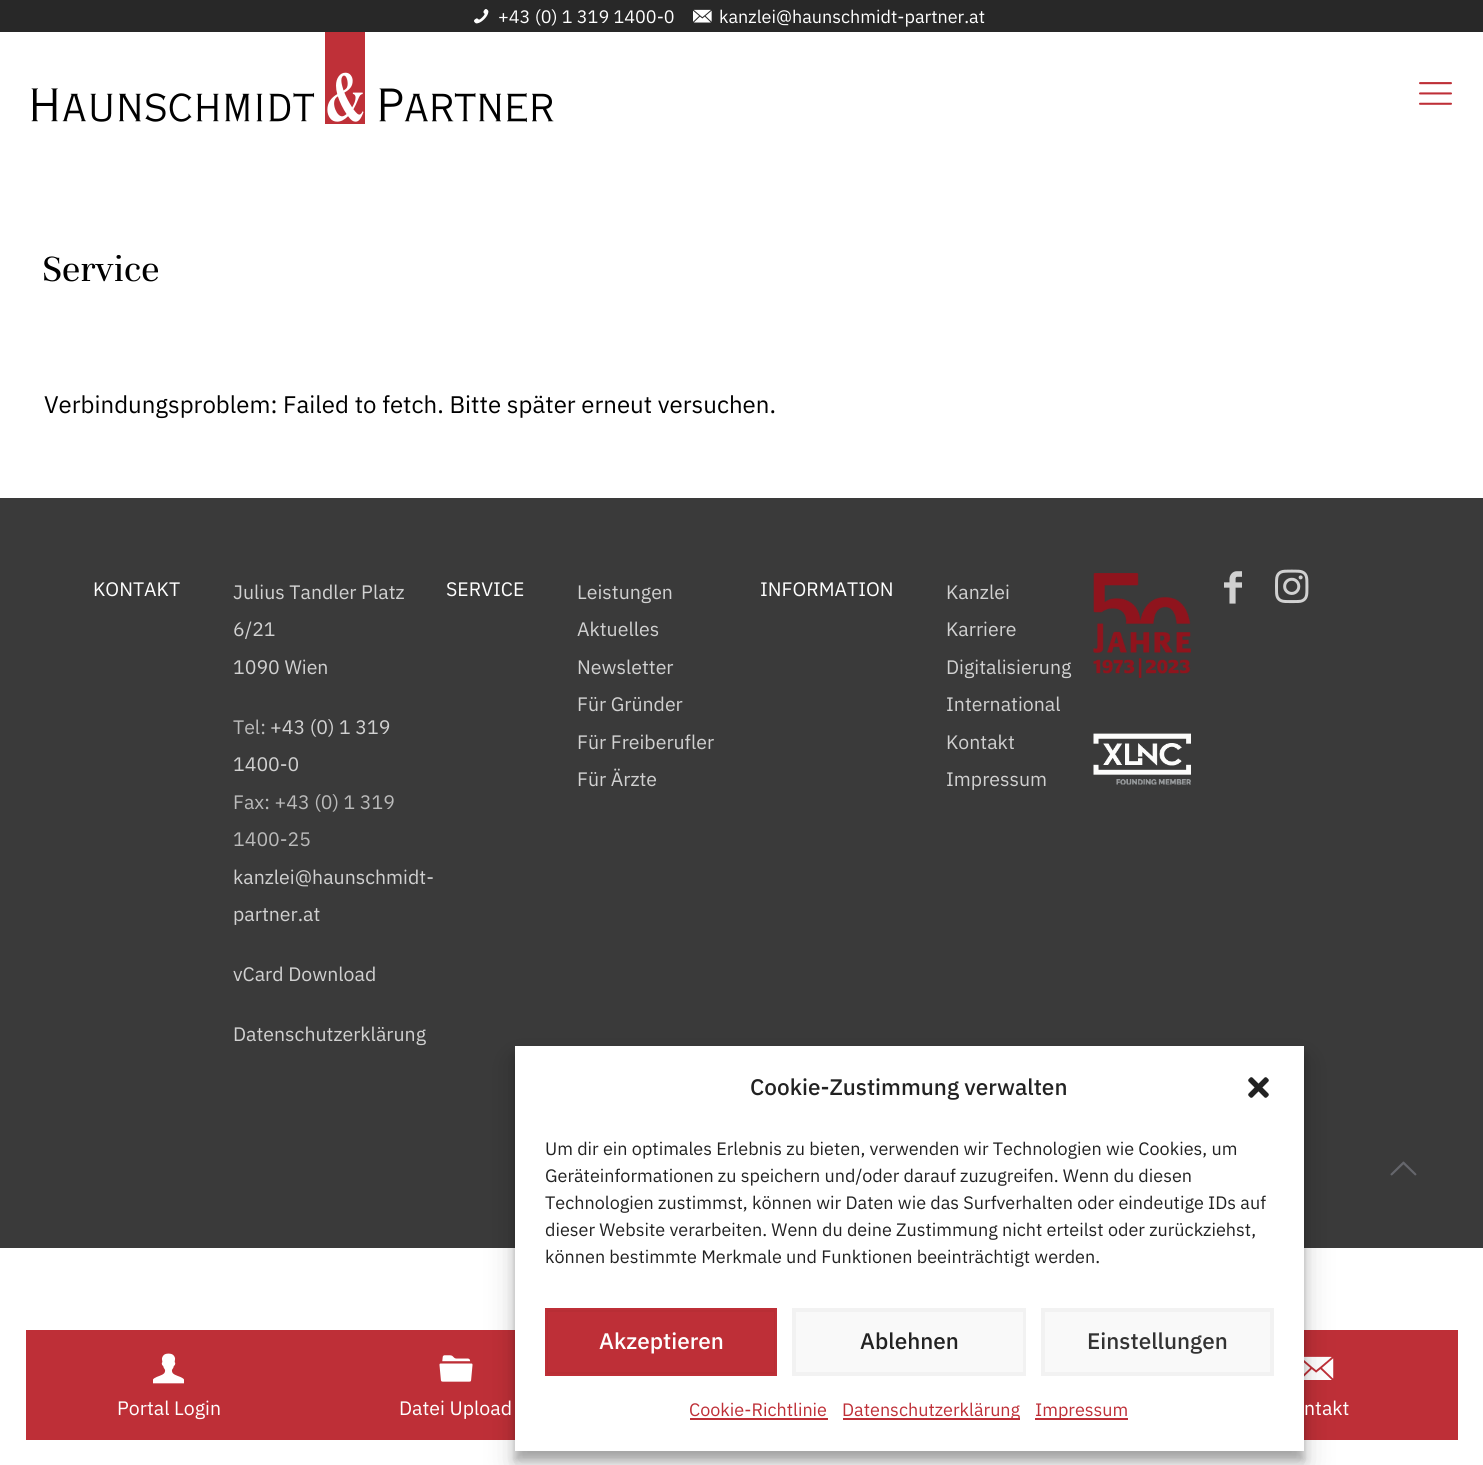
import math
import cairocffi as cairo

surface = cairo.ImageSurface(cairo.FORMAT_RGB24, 1483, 1465)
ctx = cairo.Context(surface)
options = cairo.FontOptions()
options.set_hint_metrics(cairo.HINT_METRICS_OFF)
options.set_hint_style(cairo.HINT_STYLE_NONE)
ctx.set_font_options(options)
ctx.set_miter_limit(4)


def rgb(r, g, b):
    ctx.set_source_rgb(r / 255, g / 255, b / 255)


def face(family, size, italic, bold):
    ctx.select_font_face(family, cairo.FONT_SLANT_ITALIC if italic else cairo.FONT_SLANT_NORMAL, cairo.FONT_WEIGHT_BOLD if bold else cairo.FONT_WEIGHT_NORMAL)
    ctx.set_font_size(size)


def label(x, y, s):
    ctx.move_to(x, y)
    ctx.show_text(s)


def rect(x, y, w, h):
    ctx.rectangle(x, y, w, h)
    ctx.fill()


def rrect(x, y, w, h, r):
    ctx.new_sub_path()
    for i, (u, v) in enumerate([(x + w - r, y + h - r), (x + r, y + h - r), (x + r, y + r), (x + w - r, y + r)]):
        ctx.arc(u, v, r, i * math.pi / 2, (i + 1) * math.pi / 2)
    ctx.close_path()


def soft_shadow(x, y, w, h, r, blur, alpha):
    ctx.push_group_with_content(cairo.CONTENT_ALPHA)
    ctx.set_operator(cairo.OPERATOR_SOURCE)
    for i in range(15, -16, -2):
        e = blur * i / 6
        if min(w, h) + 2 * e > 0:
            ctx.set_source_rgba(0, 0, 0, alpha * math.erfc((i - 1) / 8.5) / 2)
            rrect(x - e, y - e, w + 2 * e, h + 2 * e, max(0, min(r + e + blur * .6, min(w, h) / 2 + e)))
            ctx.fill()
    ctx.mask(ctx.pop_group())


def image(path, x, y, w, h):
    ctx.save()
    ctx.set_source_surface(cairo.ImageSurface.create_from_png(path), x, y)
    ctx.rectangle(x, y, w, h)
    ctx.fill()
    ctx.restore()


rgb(255, 255, 255)
ctx.paint()
rgb(40, 40, 40)
rect(0, 0, 1483, 32)
image('image0.png', 474, 9, 15, 15)
face('IBM Plex Sans', 18, 0, 0)
rgb(255, 255, 255)
label(498, 23, '+43 (0) 1 319 1400-0')
image('image1.png', 693, 9, 19, 14)
label(719, 23, 'kanzlei@haunschmidt-partner.at')
image('image2.png', 31, 32, 523, 92)
image('image3.png', 1419, 82, 33, 23)
face('Unna', 40.5, 0, 0)
rgb(0, 0, 0)
label(42, 281, 'Service')
face('IBM Plex Sans', 24, 0, 0)
label(44, 413, 'Verbindungsproblem: Failed to fetch. Bitte später erneut versuchen.')
rgb(58, 58, 58)
rect(0, 498, 1483, 750)
face('IBM Plex Sans', 19.5, 0, 0)
rgb(255, 255, 255)
label(93, 596, 'KONTAKT')
rgb(209, 209, 209)
label(233, 599, 'Julius Tandler Platz')
label(233, 636, '6/21')
label(233, 674, '1090 Wien')
rgb(186, 186, 186)
label(233, 734, 'Tel:')
rgb(209, 209, 209)
label(270, 734, '+43 (0) 1 319')
label(233, 771, '1400-0')
rgb(186, 186, 186)
label(233, 809, 'Fax: +43 (0) 1 319')
label(233, 846, '1400-25')
rgb(209, 209, 209)
label(233, 884, 'kanzlei@haunschmidt-')
label(233, 921, 'partner.at')
label(233, 981, 'vCard Download')
label(233, 1041, 'Datenschutzerklärung')
rgb(255, 255, 255)
label(446, 596, 'SERVICE')
rgb(209, 209, 209)
label(577, 599, 'Leistungen')
label(577, 636, 'Aktuelles')
label(577, 674, 'Newsletter')
label(577, 711, 'Für Gründer')
label(577, 749, 'Für Freiberufler')
label(577, 786, 'Für Ärzte')
rgb(255, 255, 255)
label(760, 596, 'INFORMATION')
rgb(209, 209, 209)
label(946, 599, 'Kanzlei')
label(946, 636, 'Karriere')
label(946, 674, 'Digitalisierung')
label(946, 711, 'International')
label(946, 749, 'Kontakt')
label(946, 786, 'Impressum')
image('image4.png', 1093, 573, 98, 105)
image('image5.png', 1093, 733, 98, 52)
image('image6.png', 1224, 571, 18, 33)
image('image7.png', 1275, 569, 34, 35)
image('image8.png', 1390, 1161, 27, 15)
rgb(190, 47, 55)
rect(26, 1330, 1432, 110)
image('image12.png', 1304, 1356, 30, 24)
rgb(0, 0, 0)
soft_shadow(515, 1055, 789, 405, 0, 4.5, 0.23)
image('image11.png', 439, 1355, 34, 27)
soft_shadow(515, 1061, 789, 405, 0, 15, 0.19)
rgb(255, 255, 255)
rect(515, 1046, 789, 405)
face('IBM Plex Sans Medium', 22.5, 0, 0)
rgb(34, 34, 34)
label(750, 1095, 'Cookie-Zustimmung verwalten')
image('image9.png', 1248, 1077, 21, 21)
face('IBM Plex Sans', 18, 0, 0)
label(545, 1155, 'Um dir ein optimales Erlebnis zu bieten, verwenden wir Technologien wie Cookies, um')
label(545, 1182, 'Geräteinformationen zu speichern und/oder darauf zuzugreifen. Wenn du diesen')
label(545, 1209, 'Technologien zustimmst, können wir Daten wie das Surfverhalten oder eindeutige IDs auf')
label(545, 1236, 'dieser Website verarbeiten. Wenn du deine Zustimmung nicht erteilst oder zurückziehst,')
label(545, 1263, 'können bestimmte Merkmale und Funktionen beeinträchtigt werden.')
rgb(190, 47, 55)
ctx.rectangle(547, 1311, 228, 62)
ctx.fill_preserve()
rgb(184, 46, 53)
ctx.stroke()
ctx.rectangle(546, 1309, 230, 66)
rgb(190, 47, 55)
ctx.stroke()
face('IBM Plex Sans Medium', 22.5, 0, 0)
rgb(255, 255, 255)
label(599, 1349, 'Akzeptieren')
rgb(249, 249, 249)
ctx.rectangle(795, 1311, 229, 62)
ctx.fill_preserve()
rgb(242, 242, 242)
ctx.stroke()
ctx.rectangle(793, 1309, 232, 66)
ctx.stroke()
rgb(34, 34, 34)
label(860, 1349, 'Ablehnen')
rgb(249, 249, 249)
ctx.rectangle(1044, 1311, 227, 62)
ctx.fill_preserve()
rgb(242, 242, 242)
ctx.stroke()
ctx.rectangle(1042, 1309, 231, 66)
ctx.stroke()
rgb(51, 51, 51)
label(1087, 1349, 'Einstellungen')
face('IBM Plex Sans', 18, 0, 0)
rgb(190, 47, 55)
label(689, 1416, 'Cookie-Richtlinie')
rect(690, 1418, 138, 2)
rect(843, 1418, 177, 2)
label(842, 1416, 'Datenschutzerklärung')
rect(1035, 1418, 93, 2)
label(1035, 1416, 'Impressum')
image('image10.png', 153, 1353, 31, 31)
face('IBM Plex Sans', 19.5, 0, 0)
rgb(255, 255, 255)
label(117, 1415, 'Portal Login')
label(399, 1415, 'Datei Upload')
label(1304, 1415, 'ntakt')
surface.write_to_png('render.png')
